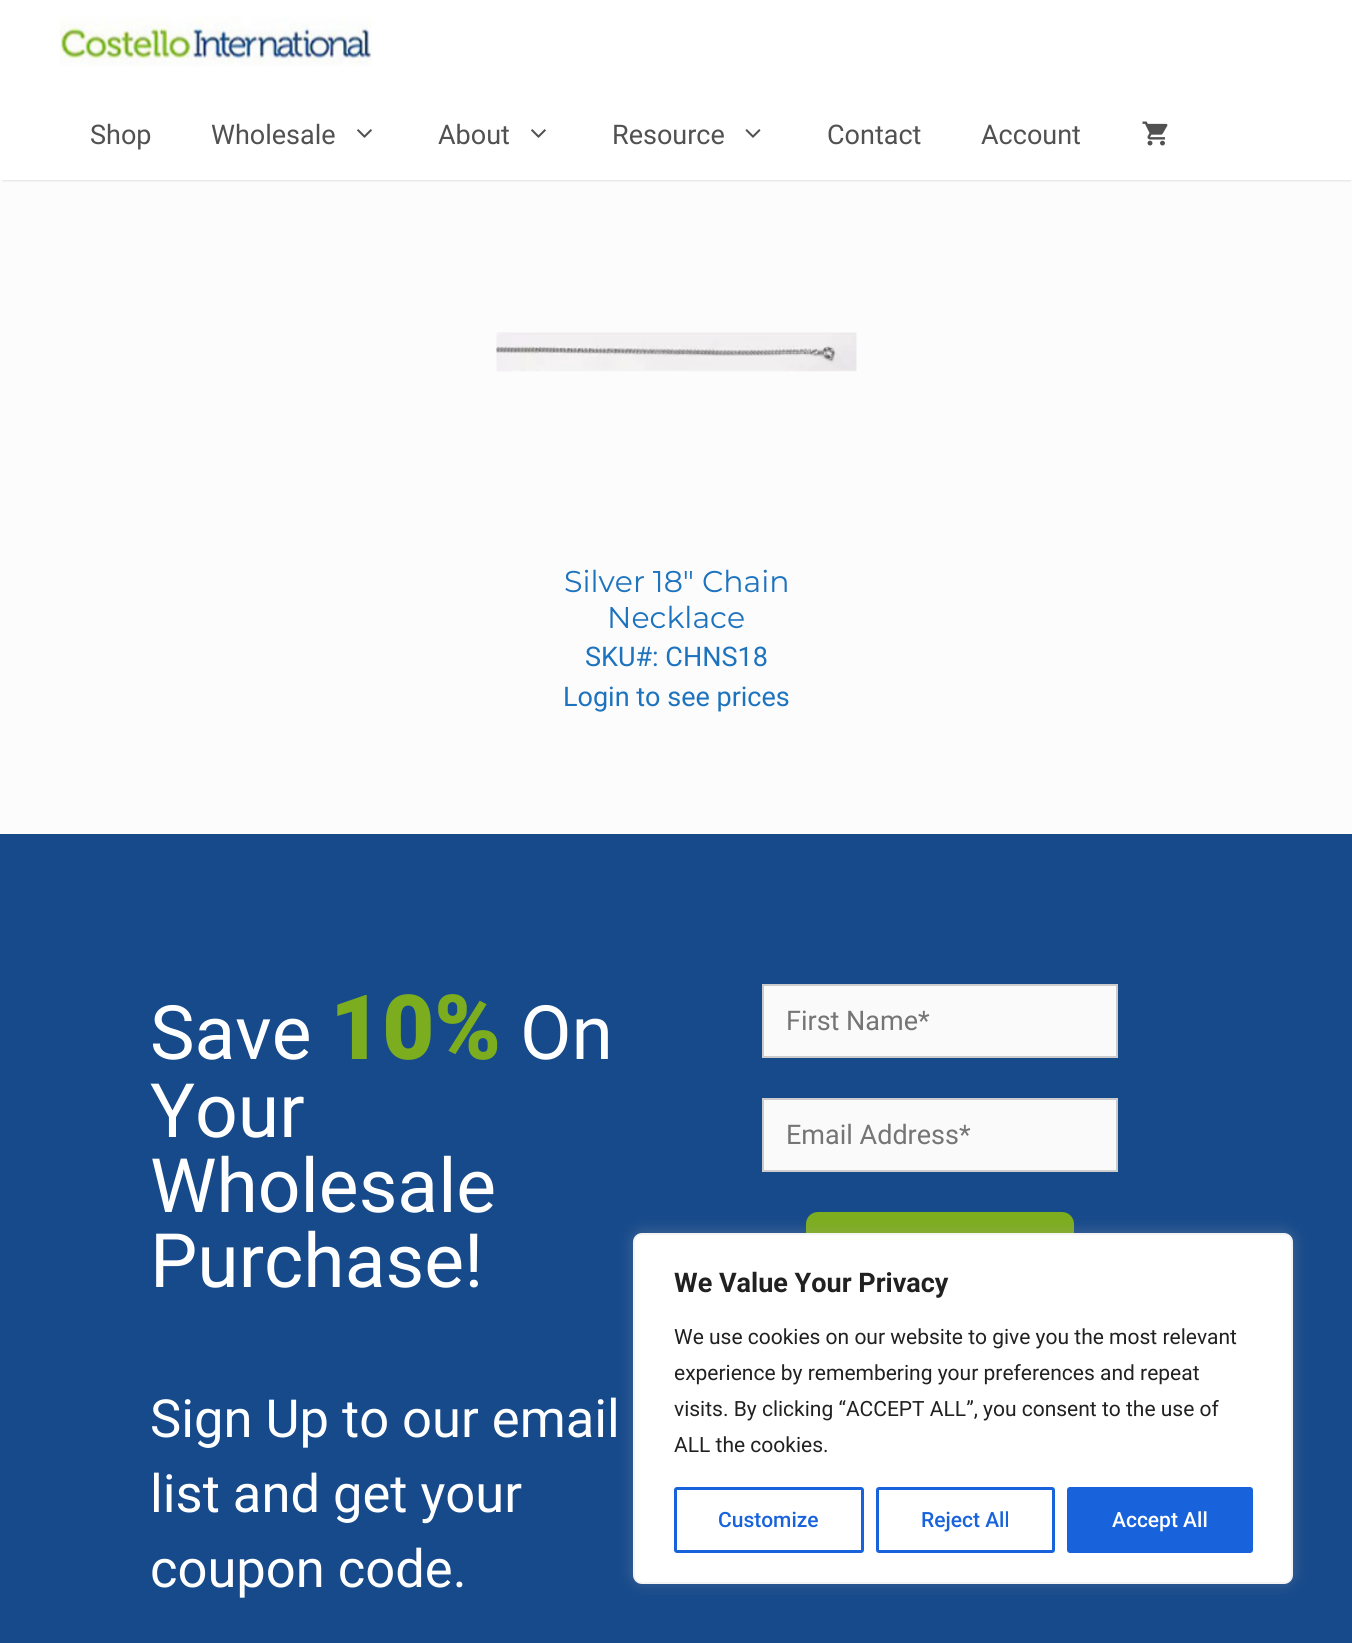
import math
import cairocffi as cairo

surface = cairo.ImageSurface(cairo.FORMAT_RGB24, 1352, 1643)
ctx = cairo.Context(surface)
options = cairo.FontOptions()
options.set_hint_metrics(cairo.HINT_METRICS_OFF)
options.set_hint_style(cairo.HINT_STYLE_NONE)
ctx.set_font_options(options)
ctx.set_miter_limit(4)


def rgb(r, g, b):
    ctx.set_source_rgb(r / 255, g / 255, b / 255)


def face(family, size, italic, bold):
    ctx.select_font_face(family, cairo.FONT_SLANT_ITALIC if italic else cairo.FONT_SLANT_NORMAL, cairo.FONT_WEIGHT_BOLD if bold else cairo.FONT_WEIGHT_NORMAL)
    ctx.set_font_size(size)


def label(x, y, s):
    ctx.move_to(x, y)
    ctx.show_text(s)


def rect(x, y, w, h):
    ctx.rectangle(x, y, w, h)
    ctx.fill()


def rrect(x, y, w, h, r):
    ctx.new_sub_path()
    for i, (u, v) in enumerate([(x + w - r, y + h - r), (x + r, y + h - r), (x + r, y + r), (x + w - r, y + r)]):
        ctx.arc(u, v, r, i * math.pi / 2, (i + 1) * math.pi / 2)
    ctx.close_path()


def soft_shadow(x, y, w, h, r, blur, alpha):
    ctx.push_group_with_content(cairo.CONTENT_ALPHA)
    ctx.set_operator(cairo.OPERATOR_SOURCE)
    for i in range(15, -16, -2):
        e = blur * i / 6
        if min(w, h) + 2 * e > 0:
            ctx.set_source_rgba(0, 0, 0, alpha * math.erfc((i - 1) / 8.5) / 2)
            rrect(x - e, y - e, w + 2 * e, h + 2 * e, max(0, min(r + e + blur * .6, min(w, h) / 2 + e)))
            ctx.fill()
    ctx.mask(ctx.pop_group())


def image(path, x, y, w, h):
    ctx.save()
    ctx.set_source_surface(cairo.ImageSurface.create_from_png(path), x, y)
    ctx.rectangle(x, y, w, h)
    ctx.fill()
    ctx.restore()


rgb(252, 252, 252)
ctx.paint()
rgb(0, 0, 0)
soft_shadow(3, 6, 1347, 174, 0, 1.5, 0.2)
rgb(255, 255, 255)
rect(0, 0, 1352, 180)
image('image0.png', 60, 15, 312, 52)
face('Roboto', 27, 0, 0)
rgb(81, 81, 81)
label(90, 144, 'Shop')
label(211, 144, 'Wholesale')
image('image1.png', 357, 129, 15, 9)
label(438, 144, 'About')
image('image1.png', 531, 129, 15, 9)
label(612, 144, 'Resource')
image('image2.png', 745, 129, 16, 9)
label(827, 144, 'Contact')
label(981, 144, 'Account')
image('image3.png', 1142, 121, 26, 25)
image('image4.png', 496, 332, 361, 40)
face('Montserrat', 30, 0, 0)
rgb(30, 115, 190)
label(564, 592, 'Silver 18″ Chain')
label(607, 628, 'Necklace')
face('Roboto', 27, 0, 0)
label(585, 666, 'SKU#: CHNS18')
label(563, 706, 'Login to see prices')
rgb(23, 74, 139)
rect(0, 834, 1352, 809)
face('Roboto', 75, 0, 0)
rgb(255, 255, 255)
label(150, 1059, 'Save')
face('Roboto Black', 90, 0, 0)
rgb(124, 173, 30)
label(330, 1059, '10%')
face('Roboto', 75, 0, 0)
rgb(255, 255, 255)
label(520, 1059, 'On')
label(150, 1137, 'Your')
label(150, 1212, 'Wholesale')
label(150, 1287, 'Purchase!')
face('Roboto', 52.5, 0, 0)
label(150, 1437, 'Sign Up to our email')
label(150, 1512, 'list and get your')
label(150, 1587, 'coupon code.')
rgb(250, 250, 250)
ctx.rectangle(763, 985, 354, 72)
ctx.fill_preserve()
rgb(204, 204, 204)
ctx.stroke()
face('Roboto', 27, 0, 0)
rgb(117, 117, 117)
label(786, 1030, 'First Name*')
rgb(250, 250, 250)
ctx.rectangle(763, 1099, 354, 72)
ctx.fill_preserve()
rgb(204, 204, 204)
ctx.stroke()
rgb(117, 117, 117)
label(786, 1144, 'Email Address*')
rgb(124, 173, 30)
rrect(806, 1212, 268, 87, 12)
ctx.fill()
rgb(172, 171, 171)
soft_shadow(633, 1232, 660, 351, 9, 7.5, 0.3)
rgb(255, 255, 255)
rrect(634, 1234, 658, 349, 8)
ctx.fill_preserve()
rgb(244, 244, 244)
ctx.stroke()
face('Roboto', 27, 0, 1)
rgb(33, 33, 33)
label(674, 1292, 'We Value Your Privacy')
face('Roboto', 21, 0, 0)
label(674, 1344, 'We use cookies on our website to give you the most relevant')
label(674, 1380, 'experience by remembering your preferences and repeat')
label(674, 1416, 'visits. By clicking “ACCEPT ALL”, you consent to the use of')
label(674, 1452, 'ALL the cookies.')
rrect(675.5, 1488.5, 187, 63, 1.5)
rgb(24, 99, 220)
ctx.set_line_width(3)
ctx.stroke()
face('Roboto Medium', 21, 0, 0)
label(718, 1527, 'Customize')
rrect(877.5, 1488.5, 176, 63, 1.5)
ctx.stroke()
label(921, 1527, 'Reject All')
rrect(1068.5, 1488.5, 183, 63, 1.5)
ctx.fill_preserve()
ctx.stroke()
rgb(255, 255, 255)
label(1112, 1527, 'Accept All')
surface.write_to_png('render.png')
